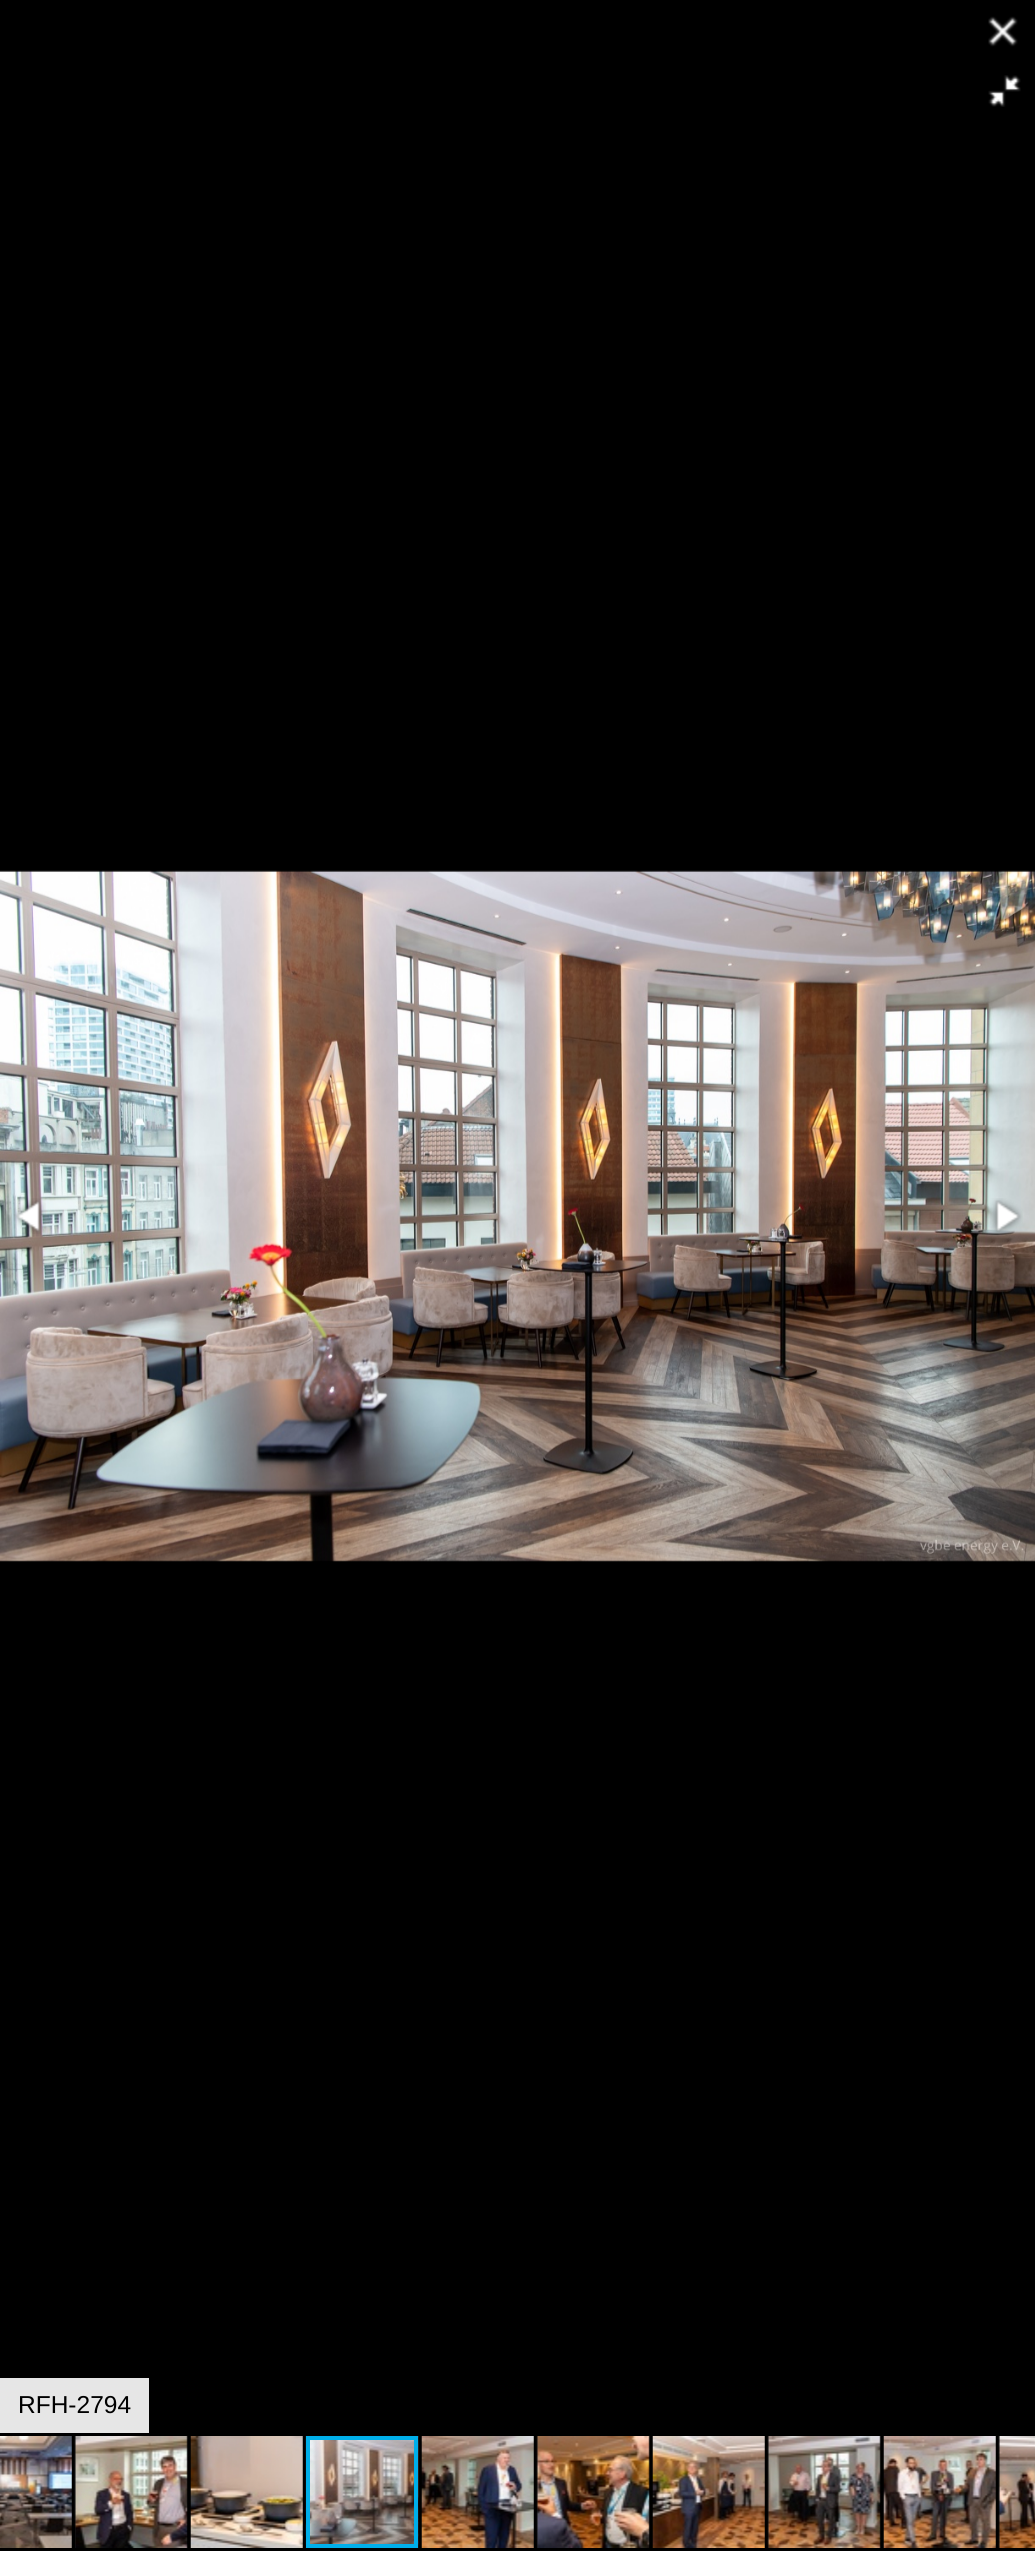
import math
import cairocffi as cairo

surface = cairo.ImageSurface(cairo.FORMAT_RGB24, 1035, 2551)
ctx = cairo.Context(surface)
options = cairo.FontOptions()
options.set_hint_metrics(cairo.HINT_METRICS_OFF)
options.set_hint_style(cairo.HINT_STYLE_NONE)
ctx.set_font_options(options)
ctx.set_miter_limit(4)


def rgb(r, g, b):
    ctx.set_source_rgb(r / 255, g / 255, b / 255)


def face(family, size, italic, bold):
    ctx.select_font_face(family, cairo.FONT_SLANT_ITALIC if italic else cairo.FONT_SLANT_NORMAL, cairo.FONT_WEIGHT_BOLD if bold else cairo.FONT_WEIGHT_NORMAL)
    ctx.set_font_size(size)


def label(x, y, s):
    ctx.move_to(x, y)
    ctx.show_text(s)


def rect(x, y, w, h):
    ctx.rectangle(x, y, w, h)
    ctx.fill()


def image(path, x, y, w, h):
    ctx.save()
    ctx.set_source_surface(cairo.ImageSurface.create_from_png(path), x, y)
    ctx.rectangle(x, y, w, h)
    ctx.fill()
    ctx.restore()


rgb(0, 0, 0)
ctx.paint()
image('image0.png', 988, 16, 30, 31)
image('image1.png', 988, 75, 33, 32)
image('image4.png', 0, 870, 1035, 692)
image('image2.png', 13, 1198, 33, 36)
image('image3.png', 990, 1198, 33, 36)
rgb(230, 230, 230)
rect(0, 2378, 149, 55)
face('Liberation Sans', 24.5, 0, 0)
rgb(0, 0, 0)
label(18, 2413, 'RFH-2794')
image('image5.png', 0, 2436, 72, 112)
rgb(25, 25, 25)
rect(75, 2436, 112, 112)
image('image6.png', 74, 2436, 114, 112)
image('image7.png', 190, 2436, 113, 112)
image('image8.png', 305, 2436, 114, 112)
ctx.rectangle(308, 2438, 108, 108)
rgb(0, 175, 234)
ctx.set_line_width(4)
ctx.stroke()
image('image9.png', 421, 2436, 113, 112)
rgb(25, 25, 25)
rect(537, 2436, 112, 112)
image('image10.png', 536, 2436, 114, 112)
image('image11.png', 652, 2436, 113, 112)
rect(768, 2436, 112, 112)
image('image12.png', 767, 2436, 114, 112)
image('image13.png', 883, 2436, 113, 112)
rect(999, 2436, 1, 112)
image('image14.png', 998, 2436, 37, 112)
surface.write_to_png('render.png')
